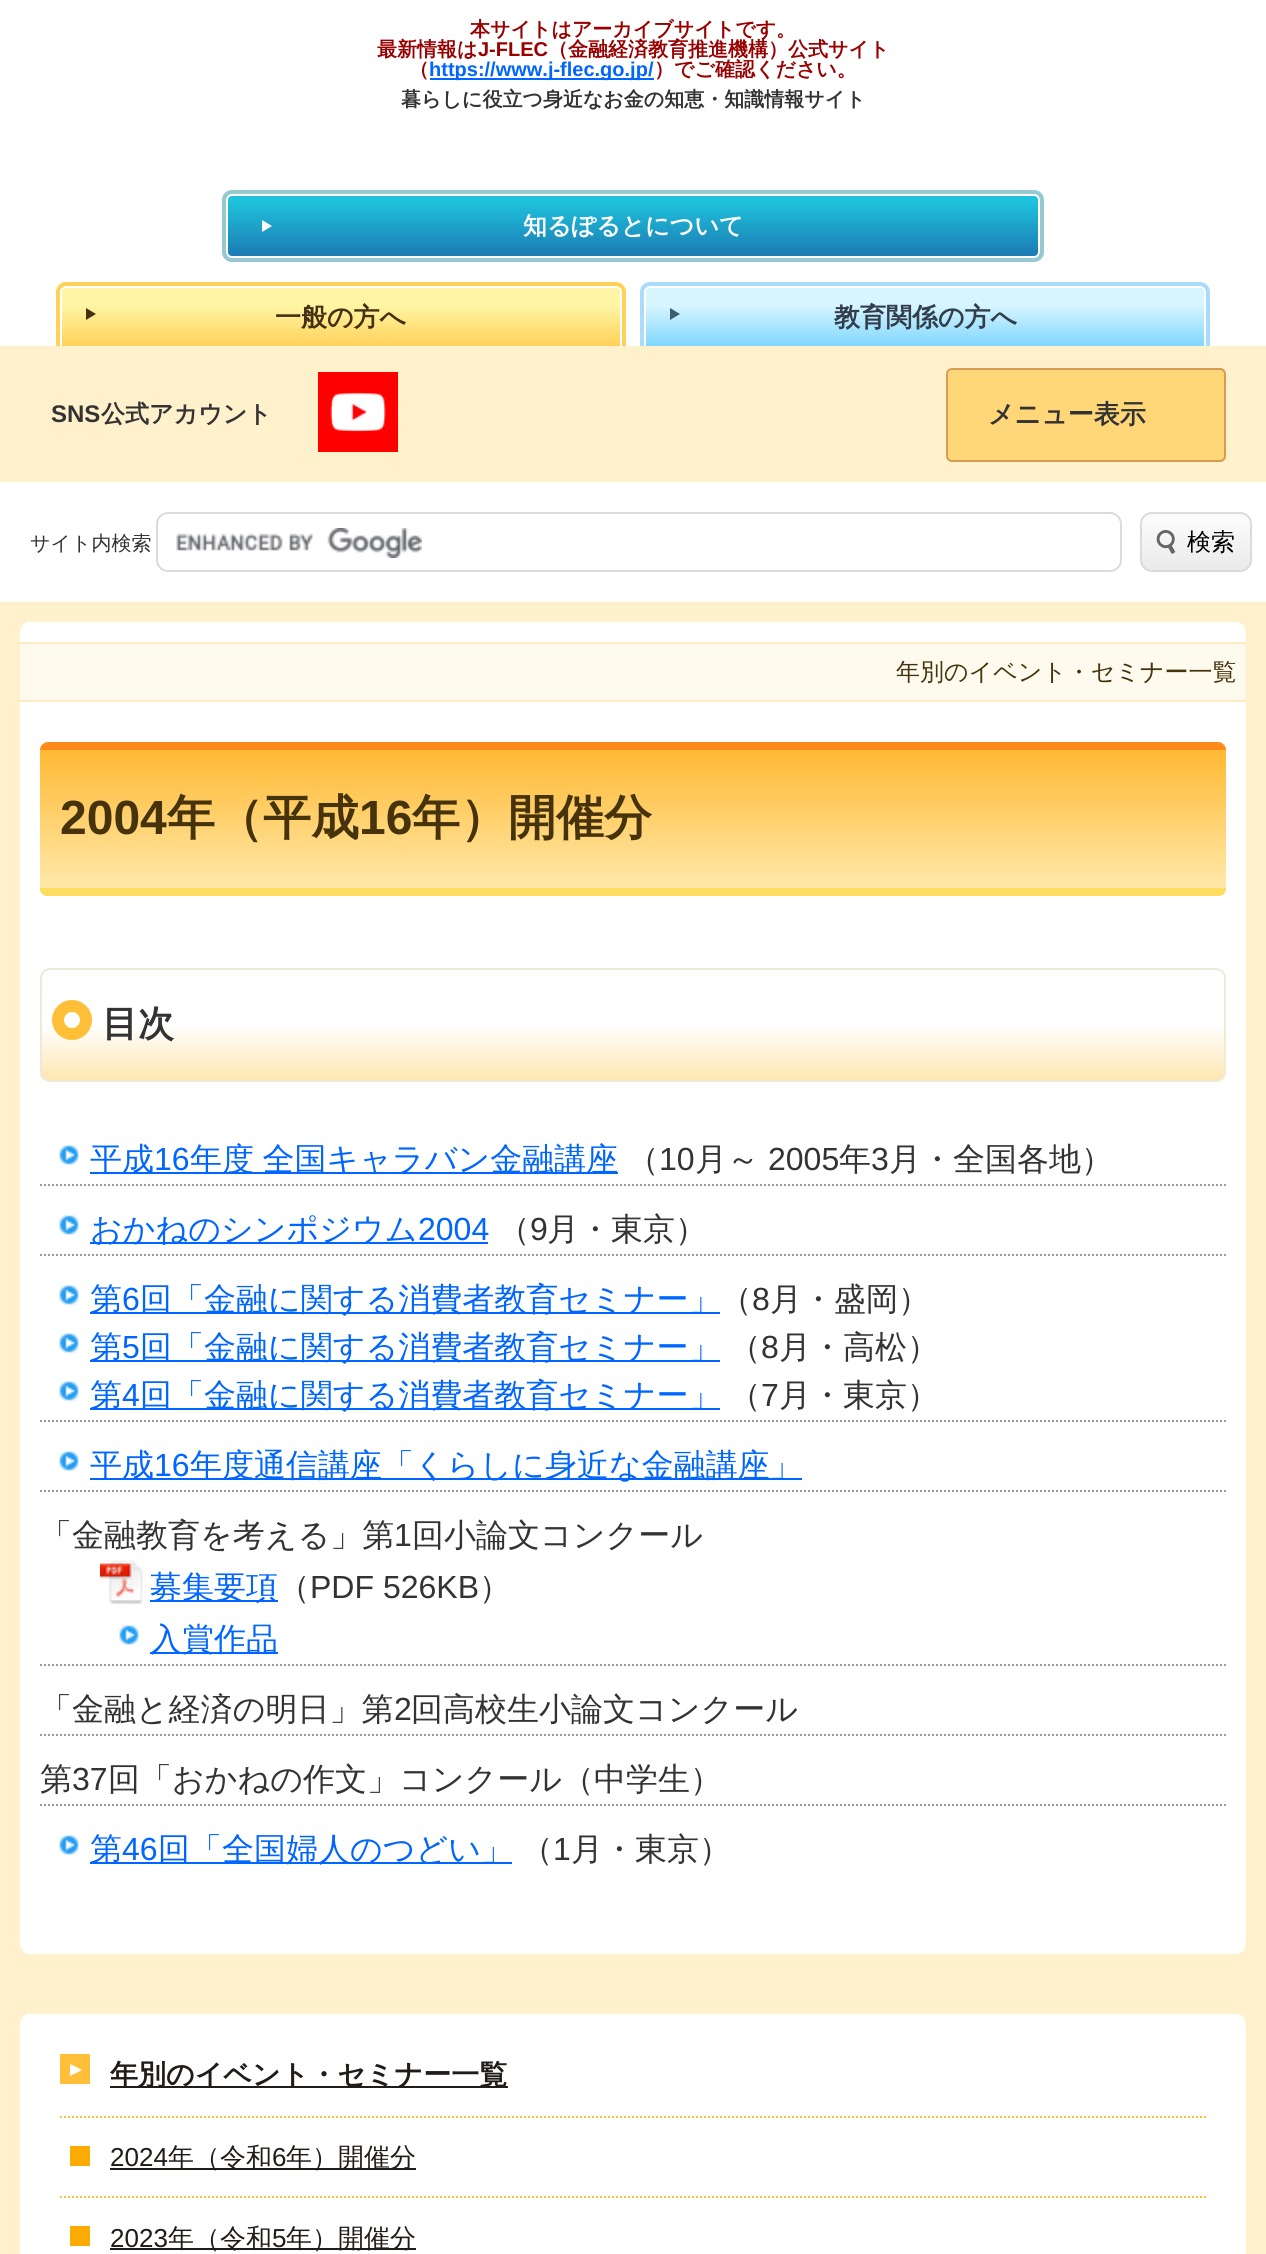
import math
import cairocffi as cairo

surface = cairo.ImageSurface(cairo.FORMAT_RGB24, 1266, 2254)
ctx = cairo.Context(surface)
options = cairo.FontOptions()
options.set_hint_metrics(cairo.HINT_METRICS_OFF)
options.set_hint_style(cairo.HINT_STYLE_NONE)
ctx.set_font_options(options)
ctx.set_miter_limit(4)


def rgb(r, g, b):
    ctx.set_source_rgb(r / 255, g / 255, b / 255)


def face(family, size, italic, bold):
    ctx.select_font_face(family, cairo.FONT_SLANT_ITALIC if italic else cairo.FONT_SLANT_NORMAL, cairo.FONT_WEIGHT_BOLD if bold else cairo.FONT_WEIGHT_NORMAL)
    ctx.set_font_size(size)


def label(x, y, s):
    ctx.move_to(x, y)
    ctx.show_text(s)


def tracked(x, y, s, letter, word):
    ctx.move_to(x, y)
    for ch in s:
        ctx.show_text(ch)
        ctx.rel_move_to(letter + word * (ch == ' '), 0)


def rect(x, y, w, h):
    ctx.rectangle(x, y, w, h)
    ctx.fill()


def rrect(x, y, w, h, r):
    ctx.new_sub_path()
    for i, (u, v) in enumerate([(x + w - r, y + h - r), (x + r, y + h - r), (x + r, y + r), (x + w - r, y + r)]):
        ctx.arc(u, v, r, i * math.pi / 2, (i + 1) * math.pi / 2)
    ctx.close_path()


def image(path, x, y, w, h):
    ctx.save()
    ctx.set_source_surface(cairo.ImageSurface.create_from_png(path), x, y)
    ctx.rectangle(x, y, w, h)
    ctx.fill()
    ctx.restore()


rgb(255, 255, 255)
ctx.paint()
face('WenQuanYi Zen Hei', 20, 0, 1)
rgb(153, 0, 0)
label(470, 36, '本サイトはアーカイブサイトです。')
label(377, 56, '最新情報は')
face('Liberation Sans', 20, 0, 1)
label(478, 56, 'J-FLEC')
face('WenQuanYi Zen Hei', 20, 0, 1)
label(548, 56, '（金融経済教育推進機構）公式サイト')
label(409, 76, '（')
rgb(0, 102, 255)
rect(430, 78, 224, 2)
face('Liberation Sans', 20, 0, 1)
label(429, 76, 'https://www.j-flec.go.jp/')
face('WenQuanYi Zen Hei', 20, 0, 1)
rgb(153, 0, 0)
label(654, 76, '）でご確認ください。')
rgb(51, 51, 51)
label(401, 106, '暮らしに役立つ身近なお金の知恵・知識情報サイト')
rgb(149, 200, 209)
rrect(222, 190, 822, 72, 10)
ctx.fill()
ctx.save()
rrect(226, 194, 814, 64, 6)
ctx.clip()
gradient = cairo.LinearGradient(633, 196, 633, 256)
gradient.add_color_stop_rgba(0.1, 0.118, 0.761, 0.863, 1)
gradient.add_color_stop_rgba(1, 0.11, 0.478, 0.702, 1)
ctx.set_source(gradient)
rect(226, 196, 814, 60)
ctx.restore()
rrect(227, 195, 812, 62, 5)
rgb(255, 255, 255)
ctx.stroke()
ctx.new_path()
ctx.move_to(262, 232)
ctx.line_to(262, 220)
ctx.line_to(272, 226)
ctx.close_path()
ctx.fill()
face('WenQuanYi Zen Hei', 24, 0, 1)
label(523, 234, '知るぽるとについて')
rgb(255, 209, 88)
ctx.new_path()
ctx.move_to(66, 282)
ctx.line_to(616, 282)
ctx.curve_to(621.5, 282, 626, 286.5, 626, 292)
ctx.line_to(626, 346)
ctx.line_to(56, 346)
ctx.line_to(56, 292)
ctx.curve_to(56, 286.5, 60.5, 282, 66, 282)
ctx.close_path()
ctx.fill()
gradient = cairo.LinearGradient(341, 288, 341, 346)
gradient.add_color_stop_rgba(0.3, 1, 0.961, 0.647, 1)
gradient.add_color_stop_rgba(1, 1, 0.82, 0.345, 1)
ctx.set_source(gradient)
ctx.new_path()
ctx.move_to(66, 288)
ctx.line_to(616, 288)
ctx.curve_to(618, 288, 620, 290, 620, 292)
ctx.line_to(620, 346)
ctx.line_to(62, 346)
ctx.line_to(62, 292)
ctx.curve_to(62, 290, 64, 288, 66, 288)
ctx.close_path()
ctx.fill()
rgb(255, 255, 255)
ctx.set_fill_rule(cairo.FILL_RULE_EVEN_ODD)
ctx.new_path()
ctx.move_to(66, 286)
ctx.line_to(616, 286)
ctx.curve_to(619, 286, 622, 289, 622, 292)
ctx.line_to(622, 346)
ctx.line_to(60, 346)
ctx.line_to(60, 292)
ctx.curve_to(60, 289, 63, 286, 66, 286)
ctx.close_path()
ctx.move_to(66, 288)
ctx.line_to(616, 288)
ctx.curve_to(618, 288, 620, 290, 620, 292)
ctx.line_to(620, 346)
ctx.line_to(62, 346)
ctx.line_to(62, 292)
ctx.curve_to(62, 290, 64, 288, 66, 288)
ctx.close_path()
ctx.fill()
rgb(69, 50, 20)
ctx.set_fill_rule(cairo.FILL_RULE_WINDING)
ctx.new_path()
ctx.move_to(86, 320)
ctx.line_to(86, 308)
ctx.line_to(96, 314)
ctx.close_path()
ctx.fill()
face('WenQuanYi Zen Hei', 26, 0, 1)
label(275, 326, '一般の方へ')
rgb(168, 219, 252)
ctx.new_path()
ctx.move_to(650, 282)
ctx.line_to(1200, 282)
ctx.curve_to(1205.5, 282, 1210, 286.5, 1210, 292)
ctx.line_to(1210, 346)
ctx.line_to(640, 346)
ctx.line_to(640, 292)
ctx.curve_to(640, 286.5, 644.5, 282, 650, 282)
ctx.close_path()
ctx.fill()
gradient = cairo.LinearGradient(925, 288, 925, 346)
gradient.add_color_stop_rgba(0.3, 0.839, 0.961, 1, 1)
gradient.add_color_stop_rgba(1, 0.502, 0.843, 1, 1)
ctx.set_source(gradient)
ctx.new_path()
ctx.move_to(650, 288)
ctx.line_to(1200, 288)
ctx.curve_to(1202, 288, 1204, 290, 1204, 292)
ctx.line_to(1204, 346)
ctx.line_to(646, 346)
ctx.line_to(646, 292)
ctx.curve_to(646, 290, 648, 288, 650, 288)
ctx.close_path()
ctx.fill()
rgb(255, 255, 255)
ctx.set_fill_rule(cairo.FILL_RULE_EVEN_ODD)
ctx.new_path()
ctx.move_to(650, 286)
ctx.line_to(1200, 286)
ctx.curve_to(1203, 286, 1206, 289, 1206, 292)
ctx.line_to(1206, 346)
ctx.line_to(644, 346)
ctx.line_to(644, 292)
ctx.curve_to(644, 289, 647, 286, 650, 286)
ctx.close_path()
ctx.move_to(650, 288)
ctx.line_to(1200, 288)
ctx.curve_to(1202, 288, 1204, 290, 1204, 292)
ctx.line_to(1204, 346)
ctx.line_to(646, 346)
ctx.line_to(646, 292)
ctx.curve_to(646, 290, 648, 288, 650, 288)
ctx.close_path()
ctx.fill()
rgb(62, 92, 107)
ctx.set_fill_rule(cairo.FILL_RULE_WINDING)
ctx.new_path()
ctx.move_to(670, 320)
ctx.line_to(670, 308)
ctx.line_to(680, 314)
ctx.close_path()
ctx.fill()
rgb(51, 61, 75)
label(834, 326, '教育関係の方へ')
rgb(255, 241, 203)
rect(0, 346, 1266, 136)
face('Liberation Sans', 24, 0, 1)
rgb(51, 51, 51)
label(51, 422, 'SNS')
face('WenQuanYi Zen Hei', 24, 0, 1)
label(101, 422, '公式アカウント')
image('image0.png', 318, 372, 80, 80)
rgb(255, 215, 120)
rrect(947, 369, 278, 92, 5)
ctx.fill_preserve()
rgb(215, 155, 84)
ctx.stroke()
face('WenQuanYi Zen Hei', 26, 0, 1)
rgb(51, 51, 51)
label(988, 423, 'メニュー表示')
face('WenQuanYi Zen Hei Medium', 20, 0, 0)
label(30, 550, 'サイト内検索')
image('image1.png', 176, 528, 246, 30)
rrect(157, 513, 964, 58, 11)
rgb(219, 219, 219)
ctx.stroke()
ctx.save()
rrect(1140, 512, 112, 60, 12)
ctx.clip()
gradient = cairo.LinearGradient(1196, 514, 1196, 570)
gradient.add_color_stop_rgba(0.1, 0.984, 0.984, 0.984, 1)
gradient.add_color_stop_rgba(1, 0.918, 0.918, 0.918, 1)
ctx.set_source(gradient)
rect(1140, 514, 112, 56)
ctx.restore()
rrect(1141, 513, 110, 58, 11)
ctx.stroke()
image('image2.png', 1156, 530, 20, 24)
face('WenQuanYi Zen Hei Medium', 24, 0, 0)
rgb(0, 0, 0)
label(1187, 550, '検索')
rgb(255, 241, 203)
rect(0, 602, 1266, 1652)
rgb(255, 255, 255)
rrect(20, 622, 1226, 1332, 10)
ctx.fill()
rgb(255, 250, 238)
rect(20, 644, 1226, 56)
rgb(255, 235, 193)
rect(20, 642, 1226, 2)
rect(20, 700, 1226, 2)
rgb(70, 51, 11)
label(896, 680, '年別のイベント・セミナー一覧')
gradient = cairo.LinearGradient(633, 612, 633, 750)
gradient.add_color_stop_rgba(0, 1, 0.725, 0.2, 1)
gradient.add_color_stop_rgba(1, 1, 0.914, 0.667, 1)
ctx.set_source(gradient)
ctx.new_path()
ctx.move_to(48, 742)
ctx.line_to(1218, 742)
ctx.curve_to(1222.5, 742, 1226, 745.5, 1226, 750)
ctx.line_to(40, 750)
ctx.curve_to(40, 745.5, 43.5, 742, 48, 742)
ctx.close_path()
ctx.fill()
gradient = cairo.LinearGradient(633, 750, 633, 888)
gradient.add_color_stop_rgba(0, 1, 0.725, 0.2, 1)
gradient.add_color_stop_rgba(1, 1, 0.914, 0.667, 1)
ctx.set_source(gradient)
rect(40, 750, 1186, 138)
gradient = cairo.LinearGradient(633, 888, 633, 1026)
gradient.add_color_stop_rgba(0, 1, 0.725, 0.2, 1)
gradient.add_color_stop_rgba(1, 1, 0.914, 0.667, 1)
ctx.set_source(gradient)
ctx.new_path()
ctx.move_to(40, 888)
ctx.line_to(1226, 888)
ctx.curve_to(1226, 892.5, 1222.5, 896, 1218, 896)
ctx.line_to(48, 896)
ctx.curve_to(43.5, 896, 40, 892.5, 40, 888)
ctx.close_path()
ctx.fill()
rgb(255, 137, 27)
ctx.new_path()
ctx.move_to(48, 742)
ctx.curve_to(44, 742, 40, 746, 40, 750)
ctx.line_to(1226, 750)
ctx.curve_to(1226, 746, 1222, 742, 1218, 742)
ctx.close_path()
ctx.fill()
rgb(255, 221, 95)
ctx.new_path()
ctx.move_to(1218, 896)
ctx.curve_to(1222, 896, 1226, 892, 1226, 888)
ctx.line_to(40, 888)
ctx.curve_to(40, 892, 44, 896, 48, 896)
ctx.close_path()
ctx.fill()
face('Liberation Sans', 48, 0, 1)
rgb(70, 51, 11)
label(60, 834, '2004')
face('WenQuanYi Zen Hei', 48, 0, 1)
label(167, 834, '年（平成')
face('Liberation Sans', 48, 0, 1)
label(359, 834, '16')
face('WenQuanYi Zen Hei', 48, 0, 1)
label(412, 834, '年）開催分')
ctx.new_path()
ctx.move_to(40, 1185)
ctx.line_to(1226, 1185)
rgb(154, 154, 154)
ctx.set_dash([2, 2])
ctx.stroke()
ctx.save()
rrect(40, 968, 1186, 114, 10)
ctx.clip()
gradient = cairo.LinearGradient(633, 970, 633, 1080)
gradient.add_color_stop_rgba(0.5, 1, 1, 1, 1)
gradient.add_color_stop_rgba(1, 1, 0.902, 0.698, 1)
ctx.set_source(gradient)
rect(40, 970, 1186, 110)
ctx.restore()
rrect(41, 969, 1184, 112, 9)
rgb(240, 233, 215)
ctx.set_dash([])
ctx.stroke()
rgb(255, 191, 57)
ctx.arc(72, 1020, 20, 0, 2 * math.pi)
ctx.fill()
face('WenQuanYi Zen Hei', 36, 0, 1)
rgb(51, 51, 51)
label(102, 1036, '目次')
rgb(255, 255, 255)
ctx.new_path()
ctx.arc(72, 1020, 8, 0, 2 * math.pi)
ctx.fill()
image('image3.png', 59, 1145, 20, 20)
rgb(0, 102, 255)
rect(90, 1172, 528, 2)
face('WenQuanYi Zen Hei Medium', 32, 0, 0)
label(90, 1170, '平成')
face('Liberation Sans', 32, 0, 0)
label(154, 1170, '16')
face('WenQuanYi Zen Hei Medium', 32, 0, 0)
tracked(190, 1170, '年度 全国キャラバン金融講座', 0, -1)
rgb(51, 51, 51)
label(627, 1170, '（')
face('Liberation Sans', 32, 0, 0)
label(659, 1170, '10')
face('WenQuanYi Zen Hei Medium', 32, 0, 0)
label(695, 1170, '月～')
face('Liberation Sans', 32, 0, 0)
label(768, 1170, '2005')
face('WenQuanYi Zen Hei Medium', 32, 0, 0)
label(839, 1170, '年')
face('Liberation Sans', 32, 0, 0)
label(871, 1170, '3')
face('WenQuanYi Zen Hei Medium', 32, 0, 0)
label(889, 1170, '月・全国各地）')
ctx.new_path()
ctx.move_to(40, 1255)
ctx.line_to(1226, 1255)
rgb(154, 154, 154)
ctx.set_dash([2, 2])
ctx.stroke()
image('image3.png', 59, 1215, 20, 20)
rgb(0, 102, 255)
rect(90, 1242, 398, 2)
label(90, 1240, 'おかねのシンポジウム')
face('Liberation Sans', 32, 0, 0)
label(418, 1240, '2004')
face('WenQuanYi Zen Hei Medium', 32, 0, 0)
rgb(51, 51, 51)
label(498, 1240, '（')
face('Liberation Sans', 32, 0, 0)
label(530, 1240, '9')
face('WenQuanYi Zen Hei Medium', 32, 0, 0)
label(547, 1240, '月・東京）')
ctx.new_path()
ctx.move_to(40, 1421)
ctx.line_to(1226, 1421)
rgb(154, 154, 154)
ctx.stroke()
image('image3.png', 59, 1285, 20, 20)
rgb(0, 102, 255)
rect(90, 1312, 630, 2)
label(90, 1310, '第')
face('Liberation Sans', 32, 0, 0)
label(122, 1310, '6')
face('WenQuanYi Zen Hei Medium', 32, 0, 0)
label(140, 1310, '回「金融に関する消費者教育セミナー」')
rgb(51, 51, 51)
label(720, 1310, '（')
face('Liberation Sans', 32, 0, 0)
label(752, 1310, '8')
face('WenQuanYi Zen Hei Medium', 32, 0, 0)
label(770, 1310, '月・盛岡）')
image('image3.png', 59, 1333, 20, 20)
rgb(0, 102, 255)
rect(90, 1360, 630, 2)
label(90, 1358, '第')
face('Liberation Sans', 32, 0, 0)
label(122, 1358, '5')
face('WenQuanYi Zen Hei Medium', 32, 0, 0)
label(140, 1358, '回「金融に関する消費者教育セミナー」')
rgb(51, 51, 51)
label(729, 1358, '（')
face('Liberation Sans', 32, 0, 0)
label(761, 1358, '8')
face('WenQuanYi Zen Hei Medium', 32, 0, 0)
label(779, 1358, '月・高松）')
image('image3.png', 59, 1381, 20, 20)
rgb(0, 102, 255)
rect(90, 1408, 630, 2)
label(90, 1406, '第')
face('Liberation Sans', 32, 0, 0)
label(122, 1406, '4')
face('WenQuanYi Zen Hei Medium', 32, 0, 0)
label(140, 1406, '回「金融に関する消費者教育セミナー」')
rgb(51, 51, 51)
label(729, 1406, '（')
face('Liberation Sans', 32, 0, 0)
label(761, 1406, '7')
face('WenQuanYi Zen Hei Medium', 32, 0, 0)
label(779, 1406, '月・東京）')
ctx.new_path()
ctx.move_to(40, 1491)
ctx.line_to(1226, 1491)
rgb(154, 154, 154)
ctx.stroke()
image('image3.png', 59, 1451, 20, 20)
rgb(0, 102, 255)
rect(90, 1478, 712, 2)
label(90, 1476, '平成')
face('Liberation Sans', 32, 0, 0)
label(154, 1476, '16')
face('WenQuanYi Zen Hei Medium', 32, 0, 0)
label(190, 1476, '年度通信講座「くらしに身近な金融講座」')
ctx.new_path()
ctx.move_to(40, 1665)
ctx.line_to(1226, 1665)
rgb(154, 154, 154)
ctx.stroke()
rgb(51, 51, 51)
label(40, 1546, '「金融教育を考える」第')
face('Liberation Sans', 32, 0, 0)
label(394, 1546, '1')
face('WenQuanYi Zen Hei Medium', 32, 0, 0)
label(412, 1546, '回小論文コンクール')
image('image4.png', 100, 1560, 43, 44)
rgb(0, 102, 255)
rect(150, 1600, 128, 2)
label(150, 1598, '募集要項')
rgb(51, 51, 51)
label(278, 1598, '（')
face('Liberation Sans', 32, 0, 0)
label(310, 1598, 'PDF 526KB')
face('WenQuanYi Zen Hei Medium', 32, 0, 0)
label(479, 1598, '）')
image('image3.png', 119, 1625, 20, 20)
rgb(0, 102, 255)
rect(150, 1652, 128, 2)
label(150, 1650, '入賞作品')
ctx.new_path()
ctx.move_to(40, 1735)
ctx.line_to(1226, 1735)
rgb(154, 154, 154)
ctx.stroke()
rgb(51, 51, 51)
label(40, 1720, '「金融と経済の明日」第')
face('Liberation Sans', 32, 0, 0)
label(394, 1720, '2')
face('WenQuanYi Zen Hei Medium', 32, 0, 0)
label(411, 1720, '回高校生小論文コンクール')
ctx.new_path()
ctx.move_to(40, 1805)
ctx.line_to(1226, 1805)
rgb(154, 154, 154)
ctx.stroke()
rgb(51, 51, 51)
label(40, 1790, '第')
face('Liberation Sans', 32, 0, 0)
label(72, 1790, '37')
face('WenQuanYi Zen Hei Medium', 32, 0, 0)
label(108, 1790, '回「おかねの作文」コンクール（中学生）')
image('image3.png', 59, 1835, 20, 20)
rgb(0, 102, 255)
rect(90, 1862, 422, 2)
label(90, 1860, '第')
face('Liberation Sans', 32, 0, 0)
label(122, 1860, '46')
face('WenQuanYi Zen Hei Medium', 32, 0, 0)
label(158, 1860, '回「全国婦人のつどい」')
rgb(51, 51, 51)
label(521, 1860, '（')
face('Liberation Sans', 32, 0, 0)
label(553, 1860, '1')
face('WenQuanYi Zen Hei Medium', 32, 0, 0)
label(571, 1860, '月・東京）')
gradient = cairo.LinearGradient(633, 2014, 633, 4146)
gradient.add_color_stop_rgba(0.9, 1, 1, 1, 1)
gradient.add_color_stop_rgba(1, 1, 0.98, 0.929, 1)
ctx.set_source(gradient)
rrect(20, 2014, 1226, 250, 10)
ctx.fill()
ctx.new_path()
ctx.move_to(60, 2117)
ctx.line_to(1206, 2117)
rgb(255, 191, 57)
ctx.stroke()
rect(60, 2054, 30, 30)
rgb(34, 28, 24)
rect(110, 2086, 398, 2)
face('WenQuanYi Zen Hei', 28, 0, 1)
label(110, 2084, '年別のイベント・セミナー一覧')
rgb(255, 255, 255)
ctx.new_path()
ctx.move_to(70, 2076)
ctx.line_to(70, 2064)
ctx.line_to(82, 2070)
ctx.close_path()
ctx.fill()
rgb(253, 171, 0)
rect(70, 2146, 20, 20)
face('Liberation Sans', 26, 0, 0)
rgb(34, 28, 24)
label(110, 2166, '2024')
rect(110, 2168, 306, 2)
face('WenQuanYi Zen Hei Medium', 26, 0, 0)
label(168, 2166, '年（令和')
face('Liberation Sans', 26, 0, 0)
label(272, 2166, '6')
face('WenQuanYi Zen Hei Medium', 26, 0, 0)
label(286, 2166, '年）開催分')
ctx.new_path()
ctx.move_to(60, 2197)
ctx.line_to(1206, 2197)
rgb(255, 191, 57)
ctx.stroke()
rgb(253, 171, 0)
rect(70, 2226, 20, 20)
face('Liberation Sans', 26, 0, 0)
rgb(34, 28, 24)
label(110, 2247, '2023')
rect(110, 2248, 306, 2)
face('WenQuanYi Zen Hei Medium', 26, 0, 0)
label(168, 2247, '年（令和')
face('Liberation Sans', 26, 0, 0)
label(272, 2247, '5')
face('WenQuanYi Zen Hei Medium', 26, 0, 0)
label(286, 2247, '年）開催分')
surface.write_to_png('render.png')
